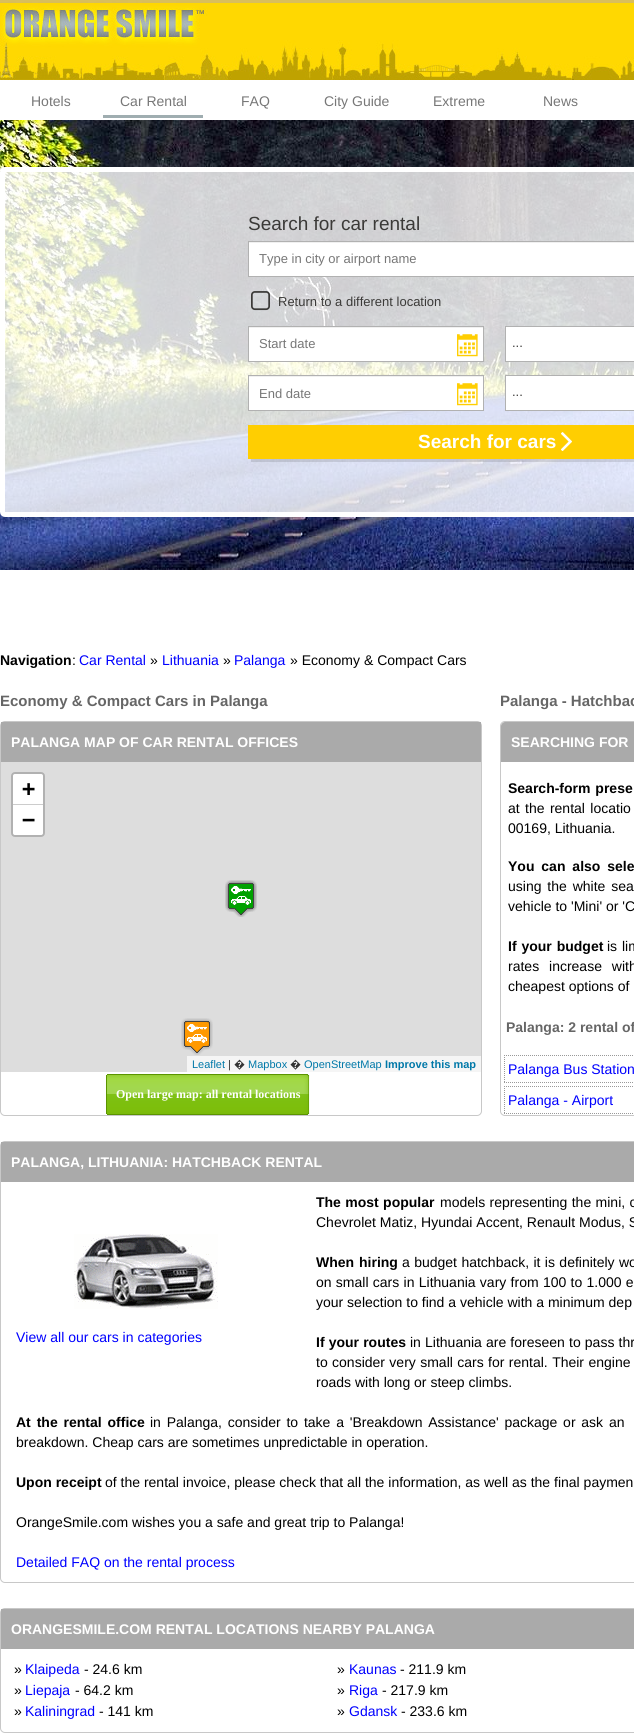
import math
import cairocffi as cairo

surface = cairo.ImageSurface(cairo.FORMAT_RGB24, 634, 1734)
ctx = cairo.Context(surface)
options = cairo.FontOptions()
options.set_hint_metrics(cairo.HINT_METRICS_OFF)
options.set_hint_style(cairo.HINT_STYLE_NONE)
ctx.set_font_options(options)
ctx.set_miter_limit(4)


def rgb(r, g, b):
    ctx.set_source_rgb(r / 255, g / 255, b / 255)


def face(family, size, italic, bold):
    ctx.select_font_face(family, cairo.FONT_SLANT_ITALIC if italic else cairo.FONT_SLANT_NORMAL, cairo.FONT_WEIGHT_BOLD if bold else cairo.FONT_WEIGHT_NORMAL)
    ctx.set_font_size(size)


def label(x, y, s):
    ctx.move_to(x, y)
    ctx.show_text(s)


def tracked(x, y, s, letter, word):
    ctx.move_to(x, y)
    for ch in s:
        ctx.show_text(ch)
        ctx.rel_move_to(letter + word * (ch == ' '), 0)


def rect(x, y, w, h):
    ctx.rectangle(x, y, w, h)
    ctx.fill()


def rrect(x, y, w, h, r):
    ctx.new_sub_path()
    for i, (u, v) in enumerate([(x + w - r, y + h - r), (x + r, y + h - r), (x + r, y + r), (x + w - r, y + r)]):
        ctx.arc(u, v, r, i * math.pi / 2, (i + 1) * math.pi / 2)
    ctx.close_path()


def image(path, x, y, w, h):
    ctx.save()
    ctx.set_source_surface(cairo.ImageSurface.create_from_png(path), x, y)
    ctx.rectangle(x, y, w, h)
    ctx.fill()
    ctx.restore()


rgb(255, 255, 255)
ctx.paint()
image('image0.png', 0, 120, 634, 450)
image('image1.png', 0, 0, 634, 80)
face('Liberation Sans', 14, 0, 0)
rgb(119, 119, 119)
label(31, 106, 'Hotels')
rgb(159, 173, 176)
rect(103, 115, 100, 3)
rgb(119, 119, 119)
label(120, 106, 'Car Rental')
label(241, 106, 'FAQ')
label(324, 106, 'City Guide')
label(433, 106, 'Extreme')
label(543, 106, 'News')
ctx.set_source_rgba(1, 1, 1, 0.8)
rrect(2.5, 169.5, 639, 345, 2.5)
ctx.fill_preserve()
rgb(255, 255, 255)
ctx.set_line_width(5)
ctx.stroke()
face('Liberation Sans', 19, 0, 0)
rgb(59, 58, 56)
label(248, 230, 'Search for car rental')
rgb(255, 255, 255)
rect(249, 243, 385, 33)
rgb(240, 240, 240)
rect(249, 242, 385, 1)
ctx.rectangle(248.5, 241.5, 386, 35)
rgb(177, 177, 177)
ctx.set_line_width(1)
ctx.stroke()
face('Liberation Sans', 13, 0, 0)
rgb(119, 119, 119)
label(259, 263, 'Type in city or airport name')
image('image2.png', 251, 291, 19, 20)
rgb(59, 58, 56)
label(278, 306, 'Return to a different location')
rgb(255, 255, 255)
rect(249, 328, 234, 33)
rgb(240, 240, 240)
rect(249, 327, 234, 1)
ctx.rectangle(248.5, 326.5, 235, 35)
rgb(177, 177, 177)
ctx.stroke()
rgb(119, 119, 119)
label(259, 348, 'Start date')
image('image3.png', 457, 334, 21, 23)
rgb(255, 255, 255)
ctx.rectangle(505.5, 326.5, 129, 35)
ctx.fill_preserve()
rgb(177, 177, 177)
ctx.stroke()
rgb(59, 58, 56)
label(512, 347, '...')
rgb(255, 255, 255)
rect(249, 377, 234, 33)
rgb(240, 240, 240)
rect(249, 376, 234, 1)
ctx.rectangle(248.5, 375.5, 235, 35)
rgb(177, 177, 177)
ctx.stroke()
rgb(119, 119, 119)
label(259, 398, 'End date')
image('image3.png', 457, 383, 21, 23)
rgb(255, 255, 255)
ctx.rectangle(505.5, 375.5, 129, 35)
ctx.fill_preserve()
rgb(177, 177, 177)
ctx.stroke()
rgb(59, 58, 56)
label(512, 396, '...')
ctx.set_source_rgba(0.231, 0.227, 0.22, 0.15)
ctx.new_path()
ctx.move_to(251, 459)
ctx.line_to(251, 462)
ctx.line_to(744, 462)
ctx.line_to(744, 428)
ctx.line_to(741, 428)
ctx.line_to(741, 459)
ctx.close_path()
ctx.fill()
rgb(255, 206, 1)
rect(248, 425, 386, 34)
face('Liberation Sans', 19, 0, 1)
rgb(255, 255, 255)
label(418, 448, 'Search for cars')
image('image4.png', 561, 432, 11, 19)
face('Liberation Sans', 14, 0, 1)
rgb(0, 0, 0)
label(0, 665, 'Navigation')
face('Liberation Sans', 14, 0, 0)
label(72, 665, ':')
rgb(0, 0, 255)
label(79, 665, 'Car Rental')
rgb(0, 0, 0)
label(150, 665, '»')
rgb(0, 0, 255)
label(162, 665, 'Lithuania')
rgb(0, 0, 0)
label(223, 665, '»')
rgb(0, 0, 255)
label(234, 665, 'Palanga')
rgb(0, 0, 0)
label(290, 665, '» Economy & Compact Cars')
face('Liberation Sans', 15, 0, 1)
rgb(102, 102, 102)
label(0, 706, 'Economy & Compact Cars in Palanga')
rrect(0.5, 721.5, 481, 394, 4.5)
rgb(200, 200, 200)
ctx.stroke()
rgb(170, 170, 170)
rect(1, 722, 480, 40)
face('Liberation Sans', 14, 0, 1)
rgb(255, 255, 255)
label(11, 747, 'PALANGA MAP OF CAR RENTAL OFFICES')
rgb(221, 221, 221)
rect(1, 762, 480, 310)
rrect(12, 773, 32, 63, 3)
rgb(177, 177, 177)
ctx.set_line_width(2)
ctx.stroke()
rgb(255, 255, 255)
ctx.new_path()
ctx.move_to(15, 774)
ctx.line_to(41, 774)
ctx.curve_to(42, 774, 43, 775, 43, 776)
ctx.line_to(43, 805)
ctx.line_to(13, 805)
ctx.line_to(13, 776)
ctx.curve_to(13, 775, 14, 774, 15, 774)
ctx.close_path()
ctx.fill()
rgb(204, 204, 204)
rect(13, 804, 30, 1)
face('DejaVu Sans Mono', 22, 0, 1)
rgb(0, 0, 0)
label(22, 796, '+')
rgb(255, 255, 255)
ctx.new_path()
ctx.move_to(13, 805)
ctx.line_to(43, 805)
ctx.line_to(43, 833)
ctx.curve_to(43, 834, 42, 835, 41, 835)
ctx.line_to(15, 835)
ctx.curve_to(14, 835, 13, 834, 13, 833)
ctx.close_path()
ctx.fill()
rgb(0, 0, 0)
label(22, 827, '−')
rgb(245, 245, 245)
rect(187, 1056, 294, 16)
face('Liberation Sans', 11, 0, 0)
rgb(0, 120, 168)
label(192, 1068, 'Leaflet')
rgb(51, 51, 51)
label(228, 1068, '|')
face('Noto Sans', 11, 0, 0)
label(234, 1068, '�')
face('Liberation Sans', 11, 0, 0)
rgb(0, 120, 168)
label(248, 1068, 'Mapbox')
face('Noto Sans', 11, 0, 0)
rgb(51, 51, 51)
label(290, 1068, '�')
face('Liberation Sans', 11, 0, 0)
rgb(0, 120, 168)
label(304, 1068, 'OpenStreetMap')
face('Liberation Sans', 11, 0, 1)
label(385, 1068, 'Improve this map')
image('image5.png', 225, 880, 32, 37)
image('image6.png', 225, 880, 32, 37)
image('image5.png', 181, 1018, 32, 37)
image('image7.png', 106, 1075, 1, 39)
image('image8.png', 107, 1074, 203, 41)
face('Liberation Serif', 12, 0, 1)
rgb(255, 255, 255)
label(116, 1098, 'Open large map: all rental locations')
face('Liberation Sans', 15, 0, 1)
rgb(102, 102, 102)
label(500, 706, 'Palanga - Hatchbac')
rrect(500.5, 721.5, 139, 394, 4.5)
rgb(200, 200, 200)
ctx.set_line_width(1)
ctx.stroke()
rgb(170, 170, 170)
ctx.new_path()
ctx.move_to(505, 722)
ctx.line_to(634, 722)
ctx.curve_to(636, 722, 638, 724, 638, 726)
ctx.line_to(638, 762)
ctx.line_to(501, 762)
ctx.line_to(501, 726)
ctx.curve_to(501, 724, 503, 722, 505, 722)
ctx.close_path()
ctx.fill()
face('Liberation Sans', 14, 0, 1)
rgb(255, 255, 255)
label(511, 747, 'SEARCHING FOR')
rgb(0, 0, 0)
tracked(508, 793, 'Search-form prese', 0, 1)
face('Liberation Sans', 14, 0, 0)
tracked(508, 813, 'at the rental locatio', 0, 1.5)
label(508, 833, '00169, Lithuania.')
face('Liberation Sans', 14, 0, 1)
tracked(508, 871, 'You can also sele', 0, 3)
face('Liberation Sans', 14, 0, 0)
tracked(508, 891, 'using the white sea', 0, 2)
label(508, 911, 'vehicle to \'Mini\' or \'C')
face('Liberation Sans', 14, 0, 1)
tracked(508, 951, 'If your budget', 0, 1)
face('Liberation Sans', 14, 0, 0)
tracked(607, 951, 'is lim', 0, 1)
tracked(508, 971, 'rates increase with', 0, 6)
label(508, 991, 'cheapest options of')
face('Liberation Sans', 14, 0, 1)
rgb(102, 102, 102)
label(506, 1032, 'Palanga: 2 rental of')
ctx.new_path()
ctx.move_to(504, 1055.5)
ctx.line_to(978, 1055.5)
rgb(153, 153, 153)
ctx.set_dash([1, 1])
ctx.stroke()
ctx.new_path()
ctx.move_to(504, 1082.5)
ctx.line_to(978, 1082.5)
ctx.stroke()
ctx.new_path()
ctx.move_to(504.5, 1055)
ctx.line_to(504.5, 1083)
ctx.stroke()
face('Liberation Sans', 14, 0, 0)
rgb(0, 0, 255)
label(508, 1074, 'Palanga Bus Station')
ctx.new_path()
ctx.move_to(504, 1086.5)
ctx.line_to(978, 1086.5)
rgb(153, 153, 153)
ctx.stroke()
ctx.new_path()
ctx.move_to(504, 1113.5)
ctx.line_to(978, 1113.5)
ctx.stroke()
ctx.new_path()
ctx.move_to(504.5, 1086)
ctx.line_to(504.5, 1114)
ctx.stroke()
rgb(0, 0, 255)
label(508, 1105, 'Palanga - Airport')
rrect(0.5, 1141.5, 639, 441, 4.5)
rgb(200, 200, 200)
ctx.set_dash([])
ctx.stroke()
rgb(170, 170, 170)
rect(1, 1142, 633, 40)
face('Liberation Sans', 14, 0, 1)
rgb(255, 255, 255)
label(11, 1167, 'PALANGA, LITHUANIA: HATCHBACK RENTAL')
rgb(0, 0, 0)
tracked(316, 1207, 'The most popular', 0, 0.5)
face('Liberation Sans', 14, 0, 0)
tracked(440, 1207, 'models representing the mini, c', 0, 0.5)
label(316, 1227, 'Chevrolet Matiz, Hyundai Accent, Renault Modus, S')
face('Liberation Sans', 14, 0, 1)
tracked(316, 1267, 'When hiring', 0, 1)
face('Liberation Sans', 14, 0, 0)
tracked(402, 1267, 'a budget hatchback, it is definitely wo', 0, 0.5)
tracked(316, 1287, 'on small cars in Lithuania vary from 100 to 1.000 e', 0, 0.4)
label(316, 1307, 'your selection to find a vehicle with a minimum dep')
image('image9.png', 74, 1234, 144, 75)
rgb(0, 0, 255)
label(16, 1342, 'View all our cars in categories')
face('Liberation Sans', 14, 0, 1)
rgb(0, 0, 0)
tracked(316, 1347, 'If your routes', 0, 0.25)
face('Liberation Sans', 14, 0, 0)
tracked(410, 1347, 'in Lithuania are foreseen to pass thr', 0, 0.25)
tracked(316, 1367, 'to consider very small cars for rental. Their engine', 0, 0.5)
label(316, 1387, 'roads with long or steep climbs.')
face('Liberation Sans', 14, 0, 1)
tracked(16, 1427, 'At the rental office', 0, 2)
face('Liberation Sans', 14, 0, 0)
tracked(150, 1427, 'in Palanga, consider to take a \'Breakdown Assistance\' package or ask an', 0, 1.9)
label(16, 1447, 'breakdown. Cheap cars are sometimes unpredictable in operation.')
face('Liberation Sans', 14, 0, 1)
label(16, 1487, 'Upon receipt')
face('Liberation Sans', 14, 0, 0)
label(105, 1487, 'of the rental invoice, please check that all the information, as well as the final paymen')
label(16, 1527, 'OrangeSmile.com wishes you a safe and great trip to Palanga!')
rgb(0, 0, 255)
label(16, 1567, 'Detailed FAQ on the rental process')
rrect(0.5, 1608.5, 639, 124, 4.5)
rgb(200, 200, 200)
ctx.stroke()
rgb(170, 170, 170)
rect(1, 1609, 633, 40)
face('Liberation Sans', 14, 0, 1)
rgb(255, 255, 255)
label(11, 1634, 'ORANGESMILE.COM RENTAL LOCATIONS NEARBY PALANGA')
face('Liberation Sans', 14, 0, 0)
rgb(0, 0, 0)
label(14, 1674, '»')
rgb(0, 0, 255)
label(25, 1674, 'Klaipeda')
rgb(0, 0, 0)
label(84, 1674, '- 24.6 km')
label(14, 1695, '»')
rgb(0, 0, 255)
label(25, 1695, 'Liepaja')
rgb(0, 0, 0)
label(75, 1695, '- 64.2 km')
label(14, 1716, '»')
rgb(0, 0, 255)
label(25, 1716, 'Kaliningrad')
rgb(0, 0, 0)
label(99, 1716, '- 141 km')
label(337, 1674, '»')
rgb(0, 0, 255)
label(349, 1674, 'Kaunas')
rgb(0, 0, 0)
label(400, 1674, '- 211.9 km')
label(337, 1695, '»')
rgb(0, 0, 255)
label(349, 1695, 'Riga')
rgb(0, 0, 0)
label(382, 1695, '- 217.9 km')
label(337, 1716, '»')
rgb(0, 0, 255)
label(349, 1716, 'Gdansk')
rgb(0, 0, 0)
label(401, 1716, '- 233.6 km')
surface.write_to_png('render.png')
